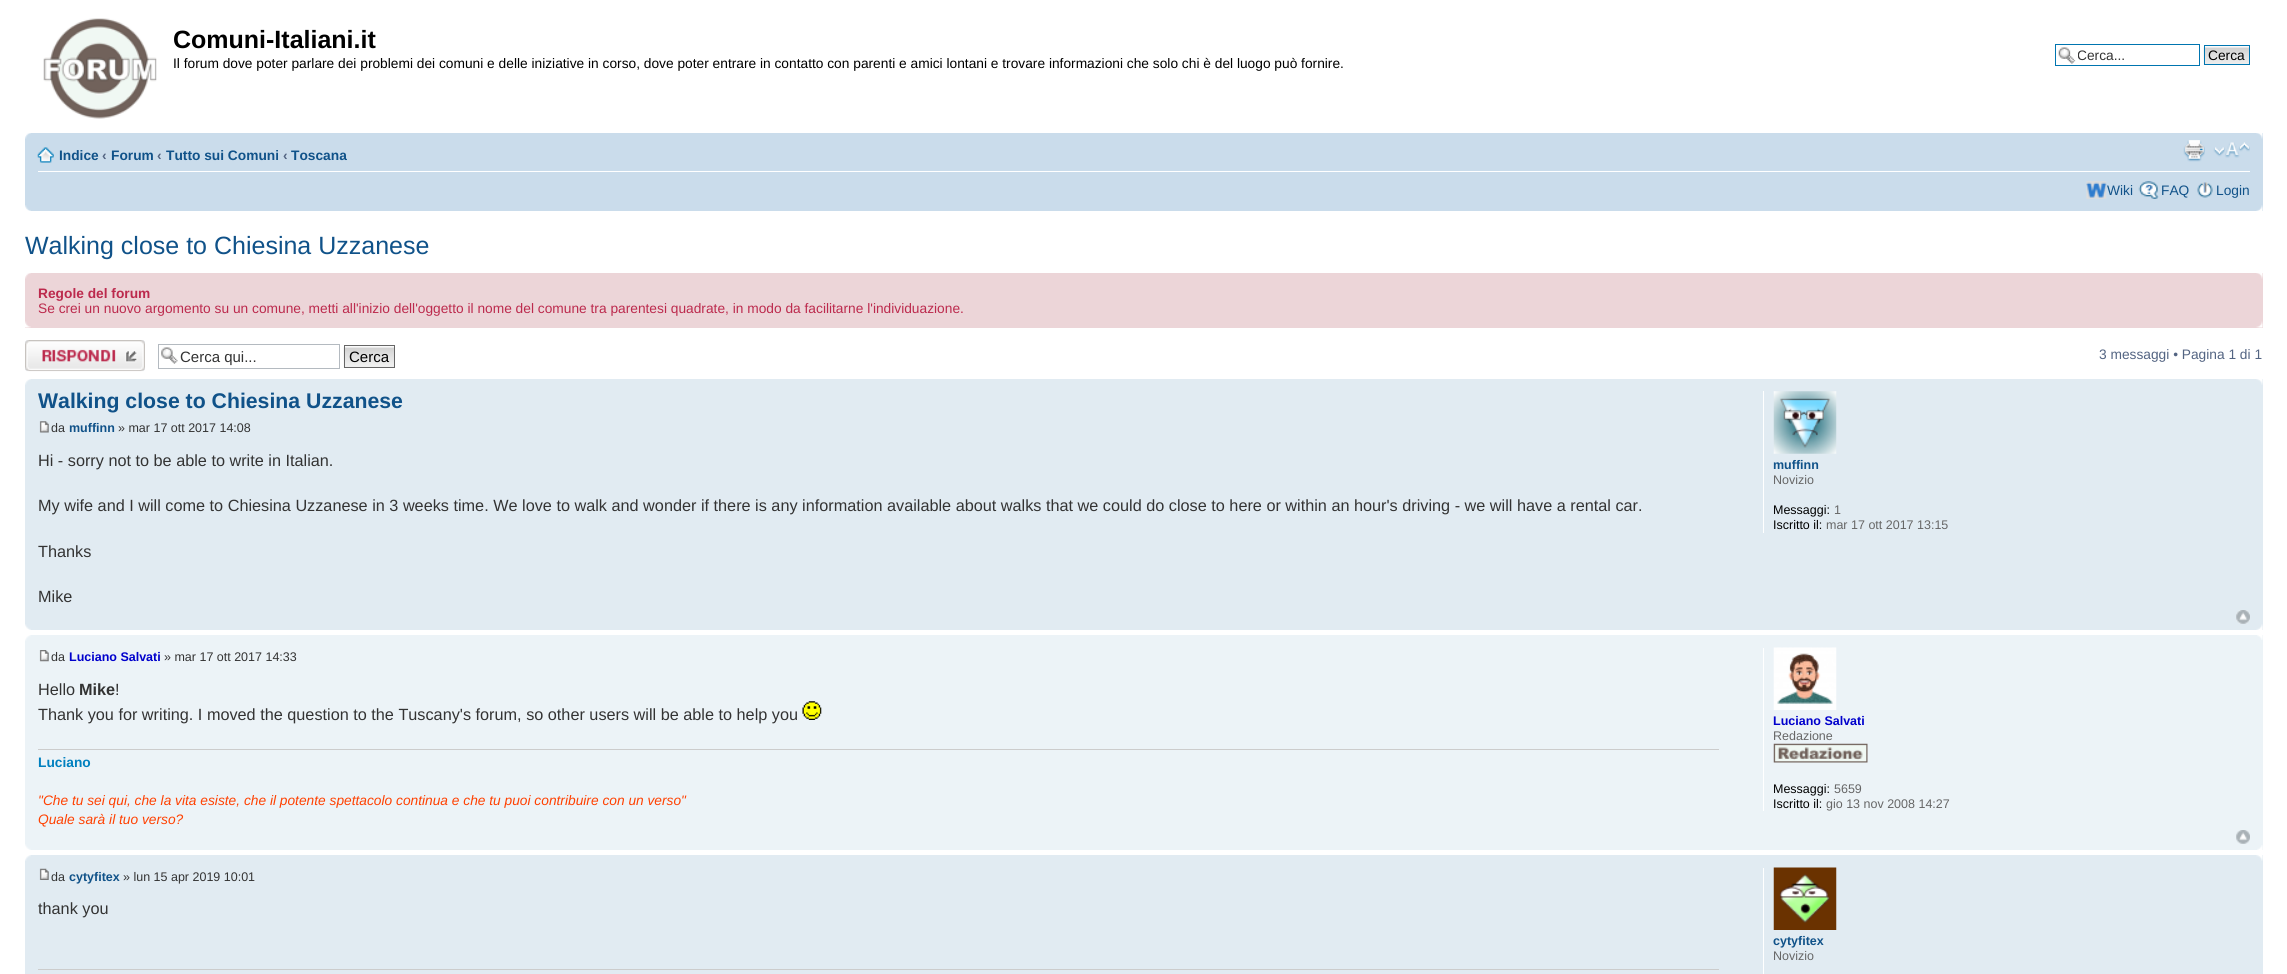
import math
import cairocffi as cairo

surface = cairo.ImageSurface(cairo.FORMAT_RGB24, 2287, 974)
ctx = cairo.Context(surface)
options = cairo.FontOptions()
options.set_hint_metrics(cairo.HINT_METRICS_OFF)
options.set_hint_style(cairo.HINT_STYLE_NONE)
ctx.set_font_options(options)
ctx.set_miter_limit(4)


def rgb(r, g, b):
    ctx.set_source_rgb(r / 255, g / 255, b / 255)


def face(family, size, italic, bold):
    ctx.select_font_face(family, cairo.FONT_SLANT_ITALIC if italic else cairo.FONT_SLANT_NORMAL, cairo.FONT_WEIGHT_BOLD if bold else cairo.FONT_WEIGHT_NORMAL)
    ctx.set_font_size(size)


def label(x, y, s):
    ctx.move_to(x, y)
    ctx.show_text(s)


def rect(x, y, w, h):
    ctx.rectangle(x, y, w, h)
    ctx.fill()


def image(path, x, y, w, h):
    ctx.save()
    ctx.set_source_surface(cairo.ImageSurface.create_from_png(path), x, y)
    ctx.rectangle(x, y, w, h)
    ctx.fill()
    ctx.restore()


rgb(255, 255, 255)
ctx.paint()
image('image0.png', 43, 18, 114, 101)
face('Liberation Sans', 25, 0, 1)
rgb(0, 0, 0)
label(173, 48, 'Comuni-Italiani.it')
face('Liberation Sans', 13.75, 0, 0)
label(173, 68, 'Il forum dove poter parlare dei problemi dei comuni e delle iniziative in corso, dove poter entrare in contatto con parenti e amici lontani e trovare informazioni che solo chi è del luogo può fornire.')
image('image1.png', 2058, 47, 18, 17)
ctx.rectangle(2055.5, 44.5, 144, 21)
rgb(0, 117, 176)
ctx.set_line_width(1)
ctx.stroke()
ctx.save()
ctx.rectangle(2078, 48, 118, 15)
ctx.clip()
rgb(51, 51, 51)
label(2077, 60, 'Cerca...')
ctx.restore()
rgb(250, 250, 250)
rect(2205, 46, 44, 1)
image('image2.png', 2203, 47, 46, 18)
ctx.rectangle(2204.5, 45.5, 45, 19)
rgb(0, 117, 176)
ctx.stroke()
rgb(0, 0, 0)
label(2208, 60, 'Cerca')
rgb(202, 220, 235)
rect(25, 133, 2238, 78)
image('image3.png', 25, 133, 6, 6)
image('image4.png', 2256, 133, 7, 6)
rgb(255, 255, 255)
rect(38, 171, 2212, 1)
image('image5.png', 37, 147, 17, 16)
face('Liberation Sans', 13.75, 0, 1)
rgb(16, 82, 137)
label(59, 160, 'Indice')
rgb(83, 100, 130)
label(102, 160, '‹')
rgb(16, 82, 137)
label(111, 160, 'Forum')
rgb(83, 100, 130)
label(157, 160, '‹')
rgb(16, 82, 137)
label(166, 160, 'Tutto sui Comuni')
rgb(83, 100, 130)
label(283, 160, '‹')
rgb(16, 82, 137)
label(291, 160, 'Toscana')
image('image6.png', 2183, 140, 22, 22)
image('image7.png', 2213, 142, 37, 16)
image('image8.png', 2086, 181, 21, 18)
face('Liberation Sans', 13.75, 0, 0)
label(2107, 195, 'Wiki')
image('image9.png', 2138, 181, 21, 18)
label(2161, 195, 'FAQ')
image('image10.png', 2197, 182, 16, 16)
label(2216, 195, 'Login')
image('image11.png', 25, 205, 6, 6)
image('image12.png', 2256, 205, 7, 6)
face('Liberation Sans', 25, 0, 0)
label(25, 254, 'Walking close to Chiesina Uzzanese')
rgb(236, 213, 216)
rect(25, 273, 2238, 55)
image('image13.png', 25, 273, 6, 6)
image('image14.png', 2256, 273, 7, 6)
face('Liberation Sans', 13.75, 0, 1)
rgb(188, 42, 77)
label(38, 298, 'Regole del forum')
face('Liberation Sans', 13.75, 0, 0)
label(38, 313, 'Se crei un nuovo argomento su un comune, metti all\'inizio dell\'oggetto il nome del comune tra parentesi quadrate, in modo da facilitarne l\'individuazione.')
image('image15.png', 25, 321, 6, 7)
image('image16.png', 2256, 321, 7, 7)
image('image17.png', 25, 340, 120, 32)
image('image18.png', 161, 347, 17, 17)
ctx.rectangle(158.5, 344.5, 181, 24)
rgb(180, 186, 192)
ctx.stroke()
face('Liberation Sans', 15, 0, 0)
rgb(51, 51, 51)
label(180, 362, 'Cerca qui...')
rgb(250, 250, 250)
rect(345, 346, 49, 1)
image('image19.png', 343, 347, 51, 21)
ctx.rectangle(344.5, 345.5, 50, 22)
rgb(102, 102, 102)
ctx.stroke()
rgb(0, 0, 0)
label(349, 362, 'Cerca')
face('Liberation Sans', 13.75, 0, 0)
rgb(83, 100, 130)
label(2099, 359, '3 messaggi • Pagina 1 di 1')
rgb(225, 235, 242)
rect(25, 379, 2238, 251)
image('image20.png', 25, 379, 6, 6)
image('image21.png', 2256, 379, 7, 6)
face('Liberation Sans', 21.25, 0, 1)
rgb(16, 82, 137)
label(38, 408, 'Walking close to Chiesina Uzzanese')
image('image22.png', 39, 421, 10, 12)
face('Liberation Sans', 12.5, 0, 0)
rgb(51, 51, 51)
label(51, 432, 'da')
face('Liberation Sans', 12.5, 0, 1)
rgb(16, 82, 137)
label(69, 432, 'muffinn')
face('Liberation Sans', 12.5, 0, 0)
rgb(51, 51, 51)
label(118, 432, '» mar 17 ott 2017 14:08')
face('Liberation Sans', 16.25, 0, 0)
label(38, 466, 'Hi - sorry not to be able to write in Italian.')
label(38, 511, 'My wife and I will come to Chiesina Uzzanese in 3 weeks time. We love to walk and wonder if there is any information available about walks that we could do close to here or within an hour\'s driving - we will have a rental car.')
label(38, 557, 'Thanks')
label(38, 602, 'Mike')
rgb(255, 255, 255)
rect(1763, 391, 1, 142)
image('image23.png', 1773, 391, 64, 63)
face('Liberation Sans', 12.5, 0, 1)
rgb(16, 82, 137)
label(1773, 469, 'muffinn')
face('Liberation Sans', 12.5, 0, 0)
rgb(102, 102, 102)
label(1773, 484, 'Novizio')
rgb(0, 0, 0)
label(1773, 514, 'Messaggi:')
rgb(102, 102, 102)
label(1834, 514, '1')
rgb(0, 0, 0)
label(1773, 529, 'Iscritto il:')
rgb(102, 102, 102)
label(1826, 529, 'mar 17 ott 2017 13:15')
image('image24.png', 2236, 610, 14, 14)
image('image25.png', 25, 624, 6, 6)
image('image26.png', 2256, 624, 7, 6)
rgb(236, 243, 247)
rect(25, 635, 2238, 215)
image('image27.png', 25, 635, 6, 6)
image('image28.png', 2257, 635, 6, 5)
image('image29.png', 39, 650, 10, 12)
rgb(51, 51, 51)
label(51, 661, 'da')
face('Liberation Sans', 12.5, 0, 1)
rgb(0, 0, 204)
label(69, 661, 'Luciano Salvati')
face('Liberation Sans', 12.5, 0, 0)
rgb(51, 51, 51)
label(164, 661, '» mar 17 ott 2017 14:33')
face('Liberation Sans', 16.25, 0, 0)
label(38, 695, 'Hello')
face('Liberation Sans', 16.25, 0, 1)
label(79, 695, 'Mike')
face('Liberation Sans', 16.25, 0, 0)
label(115, 695, '!')
label(38, 720, 'Thank you for writing. I moved the question to the Tuscany\'s forum, so other users will be able to help you')
image('image30.png', 802, 701, 20, 19)
rgb(204, 204, 204)
rect(38, 749, 1681, 1)
face('Liberation Sans', 13.75, 0, 1)
rgb(0, 128, 191)
label(38, 767, 'Luciano')
face('Liberation Sans', 13.75, 1, 0)
rgb(255, 64, 0)
label(38, 805, '"Che tu sei qui, che la vita esiste, che il potente spettacolo continua e che tu puoi contribuire con un verso"')
label(38, 824, 'Quale sarà il tuo verso?')
rgb(255, 255, 255)
rect(1763, 648, 1, 163)
image('image31.png', 1773, 647, 64, 63)
face('Liberation Sans', 12.5, 0, 1)
rgb(0, 0, 204)
label(1773, 725, 'Luciano Salvati')
face('Liberation Sans', 12.5, 0, 0)
rgb(102, 102, 102)
label(1773, 740, 'Redazione')
image('image32.png', 1773, 743, 95, 20)
rgb(0, 0, 0)
label(1773, 793, 'Messaggi:')
rgb(102, 102, 102)
label(1834, 793, '5659')
rgb(0, 0, 0)
label(1773, 808, 'Iscritto il:')
rgb(102, 102, 102)
label(1826, 808, 'gio 13 nov 2008 14:27')
image('image33.png', 2236, 830, 14, 14)
image('image34.png', 25, 844, 6, 6)
image('image35.png', 2257, 845, 6, 5)
rgb(225, 235, 242)
rect(25, 855, 2238, 119)
image('image36.png', 25, 855, 6, 6)
image('image37.png', 2256, 855, 7, 6)
image('image38.png', 39, 868, 10, 12)
rgb(51, 51, 51)
label(51, 881, 'da')
face('Liberation Sans', 12.5, 0, 1)
rgb(16, 82, 137)
label(69, 881, 'cytyfitex')
face('Liberation Sans', 12.5, 0, 0)
rgb(51, 51, 51)
label(123, 881, '» lun 15 apr 2019 10:01')
face('Liberation Sans', 16.25, 0, 0)
label(38, 914, 'thank you')
rgb(204, 204, 204)
rect(38, 969, 1681, 1)
rgb(255, 255, 255)
rect(1763, 868, 1, 106)
image('image39.png', 1773, 867, 64, 63)
face('Liberation Sans', 12.5, 0, 1)
rgb(16, 82, 137)
label(1773, 945, 'cytyfitex')
face('Liberation Sans', 12.5, 0, 0)
rgb(102, 102, 102)
label(1773, 960, 'Novizio')
surface.write_to_png('render.png')
